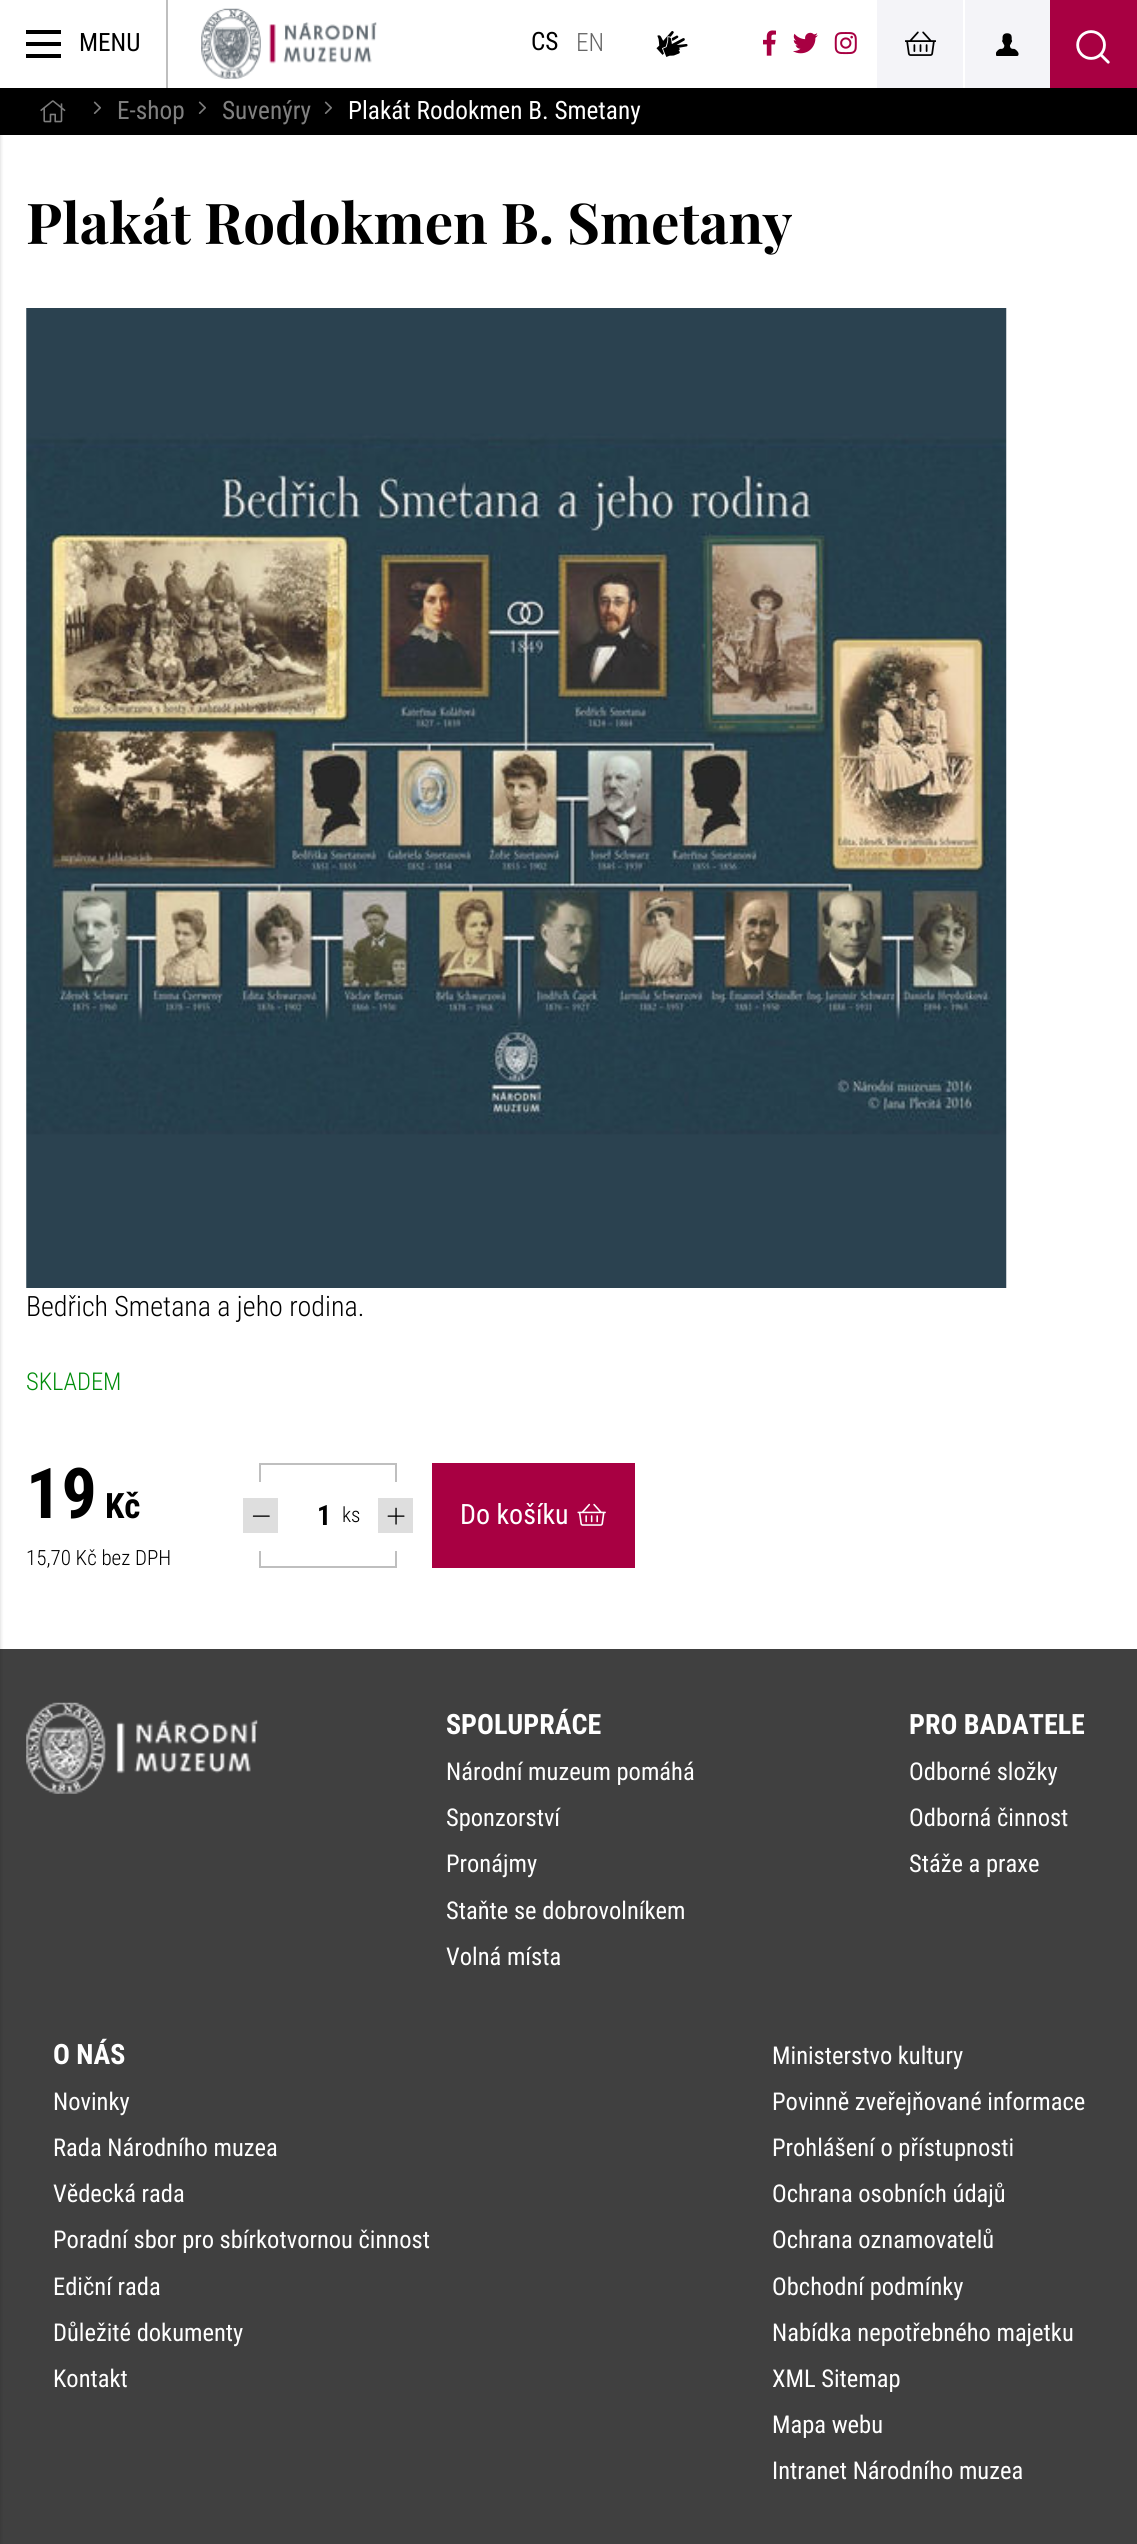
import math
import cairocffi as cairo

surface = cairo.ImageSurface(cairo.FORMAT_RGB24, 1137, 2544)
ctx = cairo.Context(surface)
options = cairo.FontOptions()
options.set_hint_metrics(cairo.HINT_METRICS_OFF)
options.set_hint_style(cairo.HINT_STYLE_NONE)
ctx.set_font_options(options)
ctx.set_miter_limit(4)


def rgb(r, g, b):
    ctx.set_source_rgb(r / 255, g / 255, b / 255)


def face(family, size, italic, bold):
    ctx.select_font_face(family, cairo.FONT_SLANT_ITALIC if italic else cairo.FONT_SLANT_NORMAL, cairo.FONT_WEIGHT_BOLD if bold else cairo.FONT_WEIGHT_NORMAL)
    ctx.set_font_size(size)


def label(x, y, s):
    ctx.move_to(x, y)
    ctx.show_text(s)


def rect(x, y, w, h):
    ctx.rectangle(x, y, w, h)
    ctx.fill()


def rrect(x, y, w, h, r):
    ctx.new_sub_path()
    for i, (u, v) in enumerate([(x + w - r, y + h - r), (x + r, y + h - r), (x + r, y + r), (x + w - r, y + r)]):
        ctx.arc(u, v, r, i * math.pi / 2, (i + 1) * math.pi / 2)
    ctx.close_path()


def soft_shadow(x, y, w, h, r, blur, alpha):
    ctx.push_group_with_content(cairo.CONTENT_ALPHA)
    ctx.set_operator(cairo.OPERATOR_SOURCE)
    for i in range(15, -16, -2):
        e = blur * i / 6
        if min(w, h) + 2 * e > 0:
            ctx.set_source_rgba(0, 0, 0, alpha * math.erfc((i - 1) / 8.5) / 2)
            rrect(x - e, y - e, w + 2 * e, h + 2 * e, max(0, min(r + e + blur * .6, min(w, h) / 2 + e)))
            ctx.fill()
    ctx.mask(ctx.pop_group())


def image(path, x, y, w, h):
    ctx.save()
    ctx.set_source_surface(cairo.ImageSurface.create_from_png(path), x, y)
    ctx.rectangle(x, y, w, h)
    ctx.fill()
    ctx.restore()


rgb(64, 64, 64)
ctx.paint()
rgb(255, 255, 255)
rect(0, 135, 1137, 1514)
rgb(0, 0, 0)
rect(0, 88, 1137, 47)
image('image8.png', 40, 100, 26, 23)
image('image9.png', 93, 101, 8, 13)
image('image9.png', 198, 101, 8, 13)
image('image9.png', 324, 101, 8, 13)
rgb(0, 0, 0)
soft_shadow(0, 9, 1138, 87, 0, 17.5, 0.12)
rgb(255, 255, 255)
rect(168, 0, 709, 88)
rgb(0, 0, 0)
soft_shadow(-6, 4, 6, 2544, 0, 2, 0.2)
rgb(255, 255, 255)
rect(0, 0, 166, 88)
rgb(191, 191, 191)
rect(166, 0, 2, 88)
rgb(0, 0, 0)
rect(26, 30, 35, 4)
rect(26, 42, 35, 4)
rect(26, 54, 35, 4)
face('Roboto Condensed', 25.25, 0, 0)
label(79, 51, 'MENU')
image('image0.png', 201, 8, 176, 71)
label(531, 50, 'CS')
face('Roboto Condensed Light', 25.25, 0, 0)
rgb(102, 102, 102)
label(576, 51, 'EN')
image('image1.png', 656, 31, 32, 26)
image('image2.png', 763, 30, 13, 26)
image('image3.png', 793, 32, 25, 22)
image('image4.png', 834, 32, 23, 23)
rgb(244, 244, 248)
rect(877, 0, 86, 88)
image('image5.png', 905, 31, 31, 25)
rect(965, 0, 85, 88)
image('image6.png', 996, 33, 23, 23)
rgb(255, 255, 255)
rect(963, 0, 2, 88)
rgb(168, 0, 66)
rect(1050, 0, 87, 88)
image('image7.png', 1076, 30, 34, 34)
face('Roboto Condensed', 25.25, 0, 0)
rgb(128, 128, 128)
label(117, 119, 'E-shop')
label(222, 119, 'Suvenýry')
rgb(255, 255, 255)
label(348, 119, 'Plakát Rodokmen B. Smetany')
face('Playfair Display', 56.4, 0, 1)
rgb(0, 0, 0)
label(26, 244, 'Plakát Rodokmen B. Smetany')
image('image10.png', 26, 308, 981, 980)
face('Roboto Condensed Light', 28, 0, 0)
label(26, 1316, 'Bedřich Smetana a jeho rodina.')
face('Roboto Condensed Light', 24.5, 0, 0)
rgb(0, 141, 10)
label(26, 1390, 'SKLADEM')
face('Roboto Condensed', 70, 0, 1)
rgb(0, 0, 0)
label(26, 1518, '19')
face('Roboto Condensed', 35, 0, 1)
label(105, 1518, 'Kč')
face('Roboto Condensed Light', 21, 0, 0)
label(26, 1565, '15,70 Kč bez DPH')
ctx.rectangle(260, 1464, 136, 103)
rgb(191, 191, 191)
ctx.stroke()
rgb(255, 255, 255)
rect(259, 1482, 2, 69)
rgb(222, 222, 222)
rect(243, 1498, 35, 35)
image('image11.png', 252, 1515, 18, 2)
face('Roboto Condensed', 28, 0, 1)
rgb(0, 0, 0)
label(317, 1525, '1')
face('Roboto Condensed Light', 21, 0, 0)
label(342, 1522, 'ks')
rgb(255, 255, 255)
rect(395, 1482, 2, 69)
rgb(222, 222, 222)
rect(378, 1498, 35, 35)
image('image12.png', 387, 1507, 18, 18)
rgb(168, 0, 66)
rect(432, 1463, 203, 105)
face('Roboto Condensed', 28, 0, 0)
rgb(255, 255, 255)
label(460, 1524, 'Do košíku')
image('image13.png', 577, 1503, 29, 23)
image('image14.png', 26, 1702, 232, 92)
face('Roboto Condensed', 28, 0, 1)
label(446, 1734, 'SPOLUPRÁCE')
face('Roboto Condensed', 24.5, 0, 0)
label(446, 1780, 'Národní muzeum pomáhá')
label(446, 1826, 'Sponzorství')
label(446, 1872, 'Pronájmy')
label(446, 1919, 'Staňte se dobrovolníkem')
label(446, 1965, 'Volná místa')
face('Roboto Condensed', 28, 0, 1)
label(909, 1734, 'PRO BADATELE')
face('Roboto Condensed', 24.5, 0, 0)
label(909, 1780, 'Odborné složky')
label(909, 1826, 'Odborná činnost')
label(909, 1872, 'Stáže a praxe')
face('Roboto Condensed', 28, 0, 1)
label(53, 2064, 'O NÁS')
face('Roboto Condensed', 24.5, 0, 0)
label(53, 2110, 'Novinky')
label(53, 2156, 'Rada Národního muzea')
label(53, 2202, 'Vědecká rada')
label(53, 2248, 'Poradní sbor pro sbírkotvornou činnost')
label(53, 2295, 'Ediční rada')
label(53, 2341, 'Důležité dokumenty')
label(53, 2387, 'Kontakt')
label(772, 2064, 'Ministerstvo kultury')
label(772, 2110, 'Povinně zveřejňované informace')
label(772, 2156, 'Prohlášení o přístupnosti')
label(772, 2202, 'Ochrana osobních údajů')
label(772, 2248, 'Ochrana oznamovatelů')
label(772, 2295, 'Obchodní podmínky')
label(772, 2341, 'Nabídka nepotřebného majetku')
label(772, 2387, 'XML Sitemap')
label(772, 2433, 'Mapa webu')
label(772, 2479, 'Intranet Národního muzea')
surface.write_to_png('render.png')
